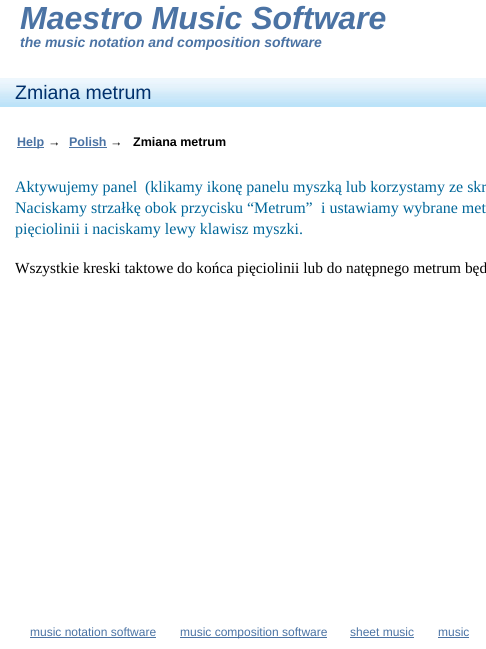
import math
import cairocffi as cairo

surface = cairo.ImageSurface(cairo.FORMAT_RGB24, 486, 649)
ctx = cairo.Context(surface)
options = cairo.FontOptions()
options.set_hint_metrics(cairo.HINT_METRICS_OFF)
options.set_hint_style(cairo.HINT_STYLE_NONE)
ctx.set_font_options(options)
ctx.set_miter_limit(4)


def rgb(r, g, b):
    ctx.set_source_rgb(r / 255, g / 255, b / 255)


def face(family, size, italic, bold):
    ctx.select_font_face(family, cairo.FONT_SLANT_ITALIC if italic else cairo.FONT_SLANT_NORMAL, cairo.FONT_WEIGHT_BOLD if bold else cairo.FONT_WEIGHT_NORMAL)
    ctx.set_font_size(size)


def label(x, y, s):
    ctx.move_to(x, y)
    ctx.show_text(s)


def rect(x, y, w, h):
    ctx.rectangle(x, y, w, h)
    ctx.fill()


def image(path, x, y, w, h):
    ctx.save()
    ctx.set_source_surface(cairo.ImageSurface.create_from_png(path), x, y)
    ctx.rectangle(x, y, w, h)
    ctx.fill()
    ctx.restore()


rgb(255, 255, 255)
ctx.paint()
face('Liberation Sans', 32, 1, 1)
rgb(75, 115, 164)
label(20, 29, 'Maestro Music Software')
face('Liberation Sans', 14, 1, 1)
label(20, 47, 'the music notation and composition software')
image('image0.png', 0, 78, 486, 29)
face('Liberation Sans', 19.5, 0, 0)
rgb(0, 48, 107)
label(15, 99, 'Zmiana metrum')
rgb(75, 115, 164)
rect(17, 147, 27, 1)
face('Liberation Sans', 12.5, 0, 1)
label(17, 146, 'Help')
rgb(0, 0, 0)
label(48, 146, '→')
rgb(75, 115, 164)
label(69, 146, 'Polish')
rect(69, 147, 38, 1)
rgb(0, 0, 0)
label(110, 146, '→')
label(133, 146, 'Zmiana metrum')
face('Liberation Serif', 16, 0, 0)
rgb(0, 102, 153)
label(15, 192, 'Aktywujemy panel')
label(145, 192, '(klikamy ikonę panelu myszką lub korzystamy ze skr')
label(15, 213, 'Naciskamy strzałkę obok przycisku “Metrum”')
label(321, 213, 'i ustawiamy wybrane met')
label(15, 234, 'pięciolinii i naciskamy lewy klawisz myszki.')
face('Liberation Serif', 15.4, 0, 0)
rgb(0, 0, 0)
label(15, 273, 'Wszystkie kreski taktowe do końca pięciolinii lub do natępnego metrum będ')
face('Liberation Sans', 12, 0, 0)
rgb(75, 115, 164)
label(30, 636, 'music notation software')
rect(30, 637, 126, 1)
rect(180, 637, 147, 1)
label(180, 636, 'music composition software')
label(350, 636, 'sheet music')
rect(350, 637, 64, 1)
label(438, 636, 'music')
rect(438, 637, 31, 1)
surface.write_to_png('render.png')
